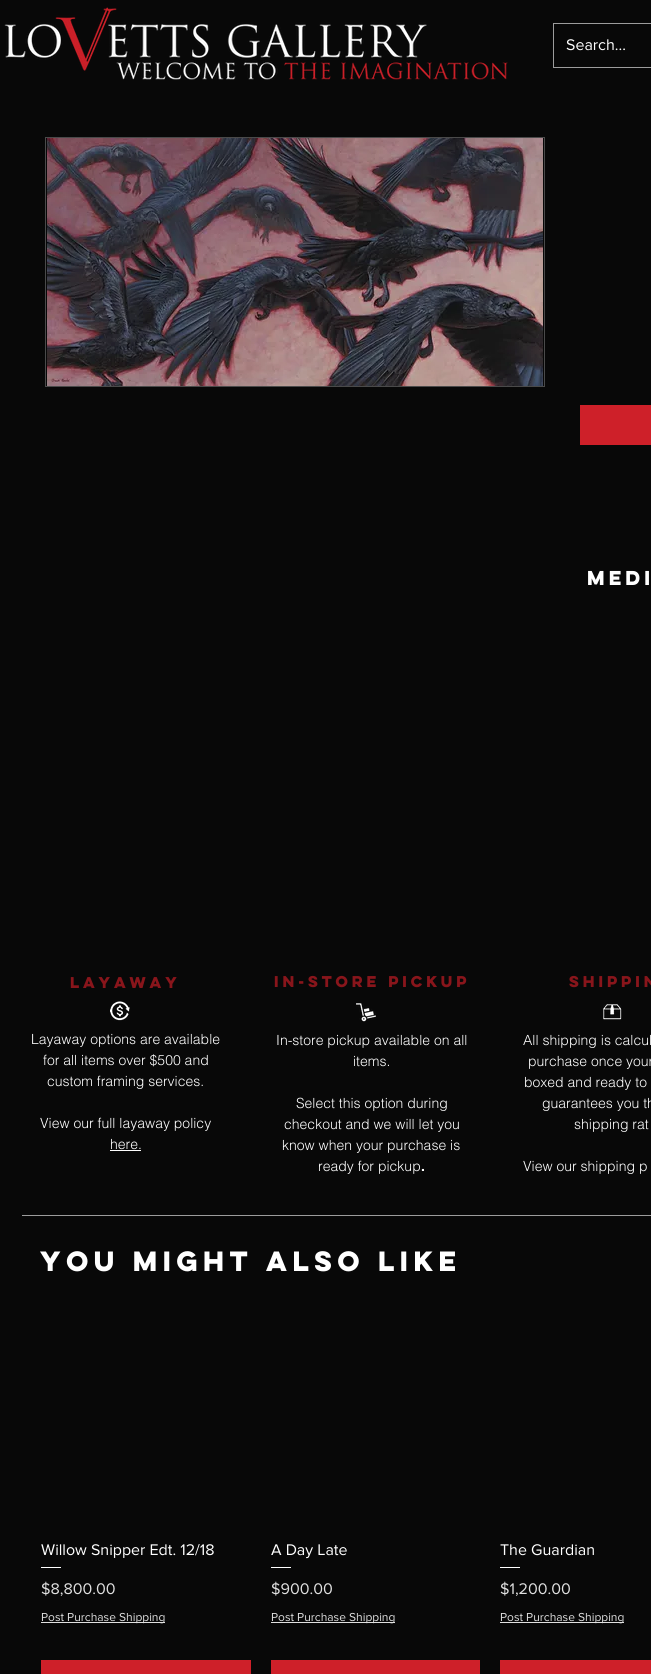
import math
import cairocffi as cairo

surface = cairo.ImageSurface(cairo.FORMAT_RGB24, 651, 1674)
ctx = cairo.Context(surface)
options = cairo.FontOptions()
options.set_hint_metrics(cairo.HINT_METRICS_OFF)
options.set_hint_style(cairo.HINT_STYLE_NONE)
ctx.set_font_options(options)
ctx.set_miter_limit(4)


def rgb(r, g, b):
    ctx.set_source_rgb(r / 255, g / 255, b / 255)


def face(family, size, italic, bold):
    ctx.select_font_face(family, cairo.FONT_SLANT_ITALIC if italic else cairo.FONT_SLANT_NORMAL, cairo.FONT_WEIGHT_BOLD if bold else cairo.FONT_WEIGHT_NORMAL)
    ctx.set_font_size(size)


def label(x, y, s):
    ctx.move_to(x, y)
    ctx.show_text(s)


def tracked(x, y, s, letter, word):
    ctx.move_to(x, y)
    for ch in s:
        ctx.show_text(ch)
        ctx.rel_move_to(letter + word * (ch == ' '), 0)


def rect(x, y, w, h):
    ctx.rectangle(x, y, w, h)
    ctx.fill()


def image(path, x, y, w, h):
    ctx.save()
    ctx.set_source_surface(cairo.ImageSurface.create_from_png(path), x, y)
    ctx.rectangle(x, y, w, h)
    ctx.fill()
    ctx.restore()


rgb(8, 8, 8)
ctx.paint()
image('image0.png', 4, 7, 504, 73)
ctx.rectangle(553.5, 23.5, 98, 44)
rgb(156, 156, 156)
ctx.set_line_width(1)
ctx.stroke()
face('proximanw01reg', 16, 0, 0)
rgb(255, 255, 255)
label(566, 50, 'Search...')
ctx.rectangle(45.5, 137.5, 499, 249)
rgb(74, 74, 74)
ctx.stroke()
image('image1.png', 47, 138, 496, 248)
rgb(206, 32, 41)
rect(580, 405, 71, 40)
face('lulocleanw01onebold', 18, 0, 1)
rgb(255, 255, 255)
label(587, 585, 'Medi')
face('lulocleanw01onebold', 14, 0, 1)
rgb(137, 21, 27)
tracked(70, 988, 'LAYAWAY', 0.75, 0)
image('image2.png', 110, 1001, 20, 20)
face('helvetica Light', 14, 0, 0)
rgb(255, 255, 255)
label(31, 1044, 'Layaway options are available')
label(43, 1065, 'for all items over $500 and')
label(47, 1086, 'custom framing services.')
label(40, 1128, 'View our full layaway policy')
label(110, 1149, 'here.')
rect(110, 1150, 31, 1)
face('lulocleanw01onebold', 14, 0, 1)
rgb(137, 21, 27)
tracked(274, 987, 'IN-STORE Pickup', 0.75, 0)
image('image3.png', 356, 1003, 20, 19)
face('helvetica Light', 14, 0, 0)
rgb(255, 255, 255)
label(276, 1045, 'In-store pickup available on all')
label(353, 1066, 'items.')
label(296, 1108, 'Select this option during')
label(284, 1129, 'checkout and we will let you')
label(282, 1150, 'know when your purchase is')
label(318, 1171, 'ready for pickup')
face('helvetica', 14, 0, 1)
label(421, 1171, '.')
face('lulocleanw01onebold', 14, 0, 1)
rgb(137, 21, 27)
tracked(569, 987, 'SHIPPIN', 0.75, 0)
image('image4.png', 603, 1004, 19, 16)
face('helvetica Light', 14, 0, 0)
rgb(255, 255, 255)
label(523, 1045, 'All shipping is calcul')
label(528, 1066, 'purchase once your')
label(524, 1087, 'boxed and ready to')
label(542, 1108, 'guarantees you th')
label(574, 1129, 'shipping rat')
label(523, 1171, 'View our shipping p')
rgb(156, 156, 156)
rect(22, 1215, 629, 1)
face('lulocleanw01onebold', 25, 0, 1)
rgb(255, 255, 255)
label(40, 1271, 'You Might Also Like')
face('proximanw01reg', 16, 0, 0)
label(41, 1555, 'Willow Snipper Edt. 12/18')
rect(41, 1567, 20, 1)
rgb(224, 224, 224)
label(41, 1594, '$8,800.00')
rect(41, 1622, 124, 1)
face('proximanw01reg', 12, 0, 0)
label(41, 1621, 'Post Purchase Shipping')
rgb(206, 32, 41)
rect(41, 1660, 210, 14)
face('proximanw01reg', 16, 0, 0)
rgb(255, 255, 255)
label(271, 1555, 'A Day Late')
rect(271, 1567, 20, 1)
rgb(224, 224, 224)
label(271, 1594, '$900.00')
rect(271, 1622, 124, 1)
face('proximanw01reg', 12, 0, 0)
label(271, 1621, 'Post Purchase Shipping')
rgb(206, 32, 41)
rect(271, 1660, 209, 14)
face('proximanw01reg', 16, 0, 0)
rgb(255, 255, 255)
label(500, 1555, 'The Guardian')
rect(500, 1567, 20, 1)
rgb(224, 224, 224)
label(500, 1594, '$1,200.00')
rect(500, 1622, 124, 1)
face('proximanw01reg', 12, 0, 0)
label(500, 1621, 'Post Purchase Shipping')
rgb(206, 32, 41)
rect(500, 1660, 151, 14)
surface.write_to_png('render.png')
